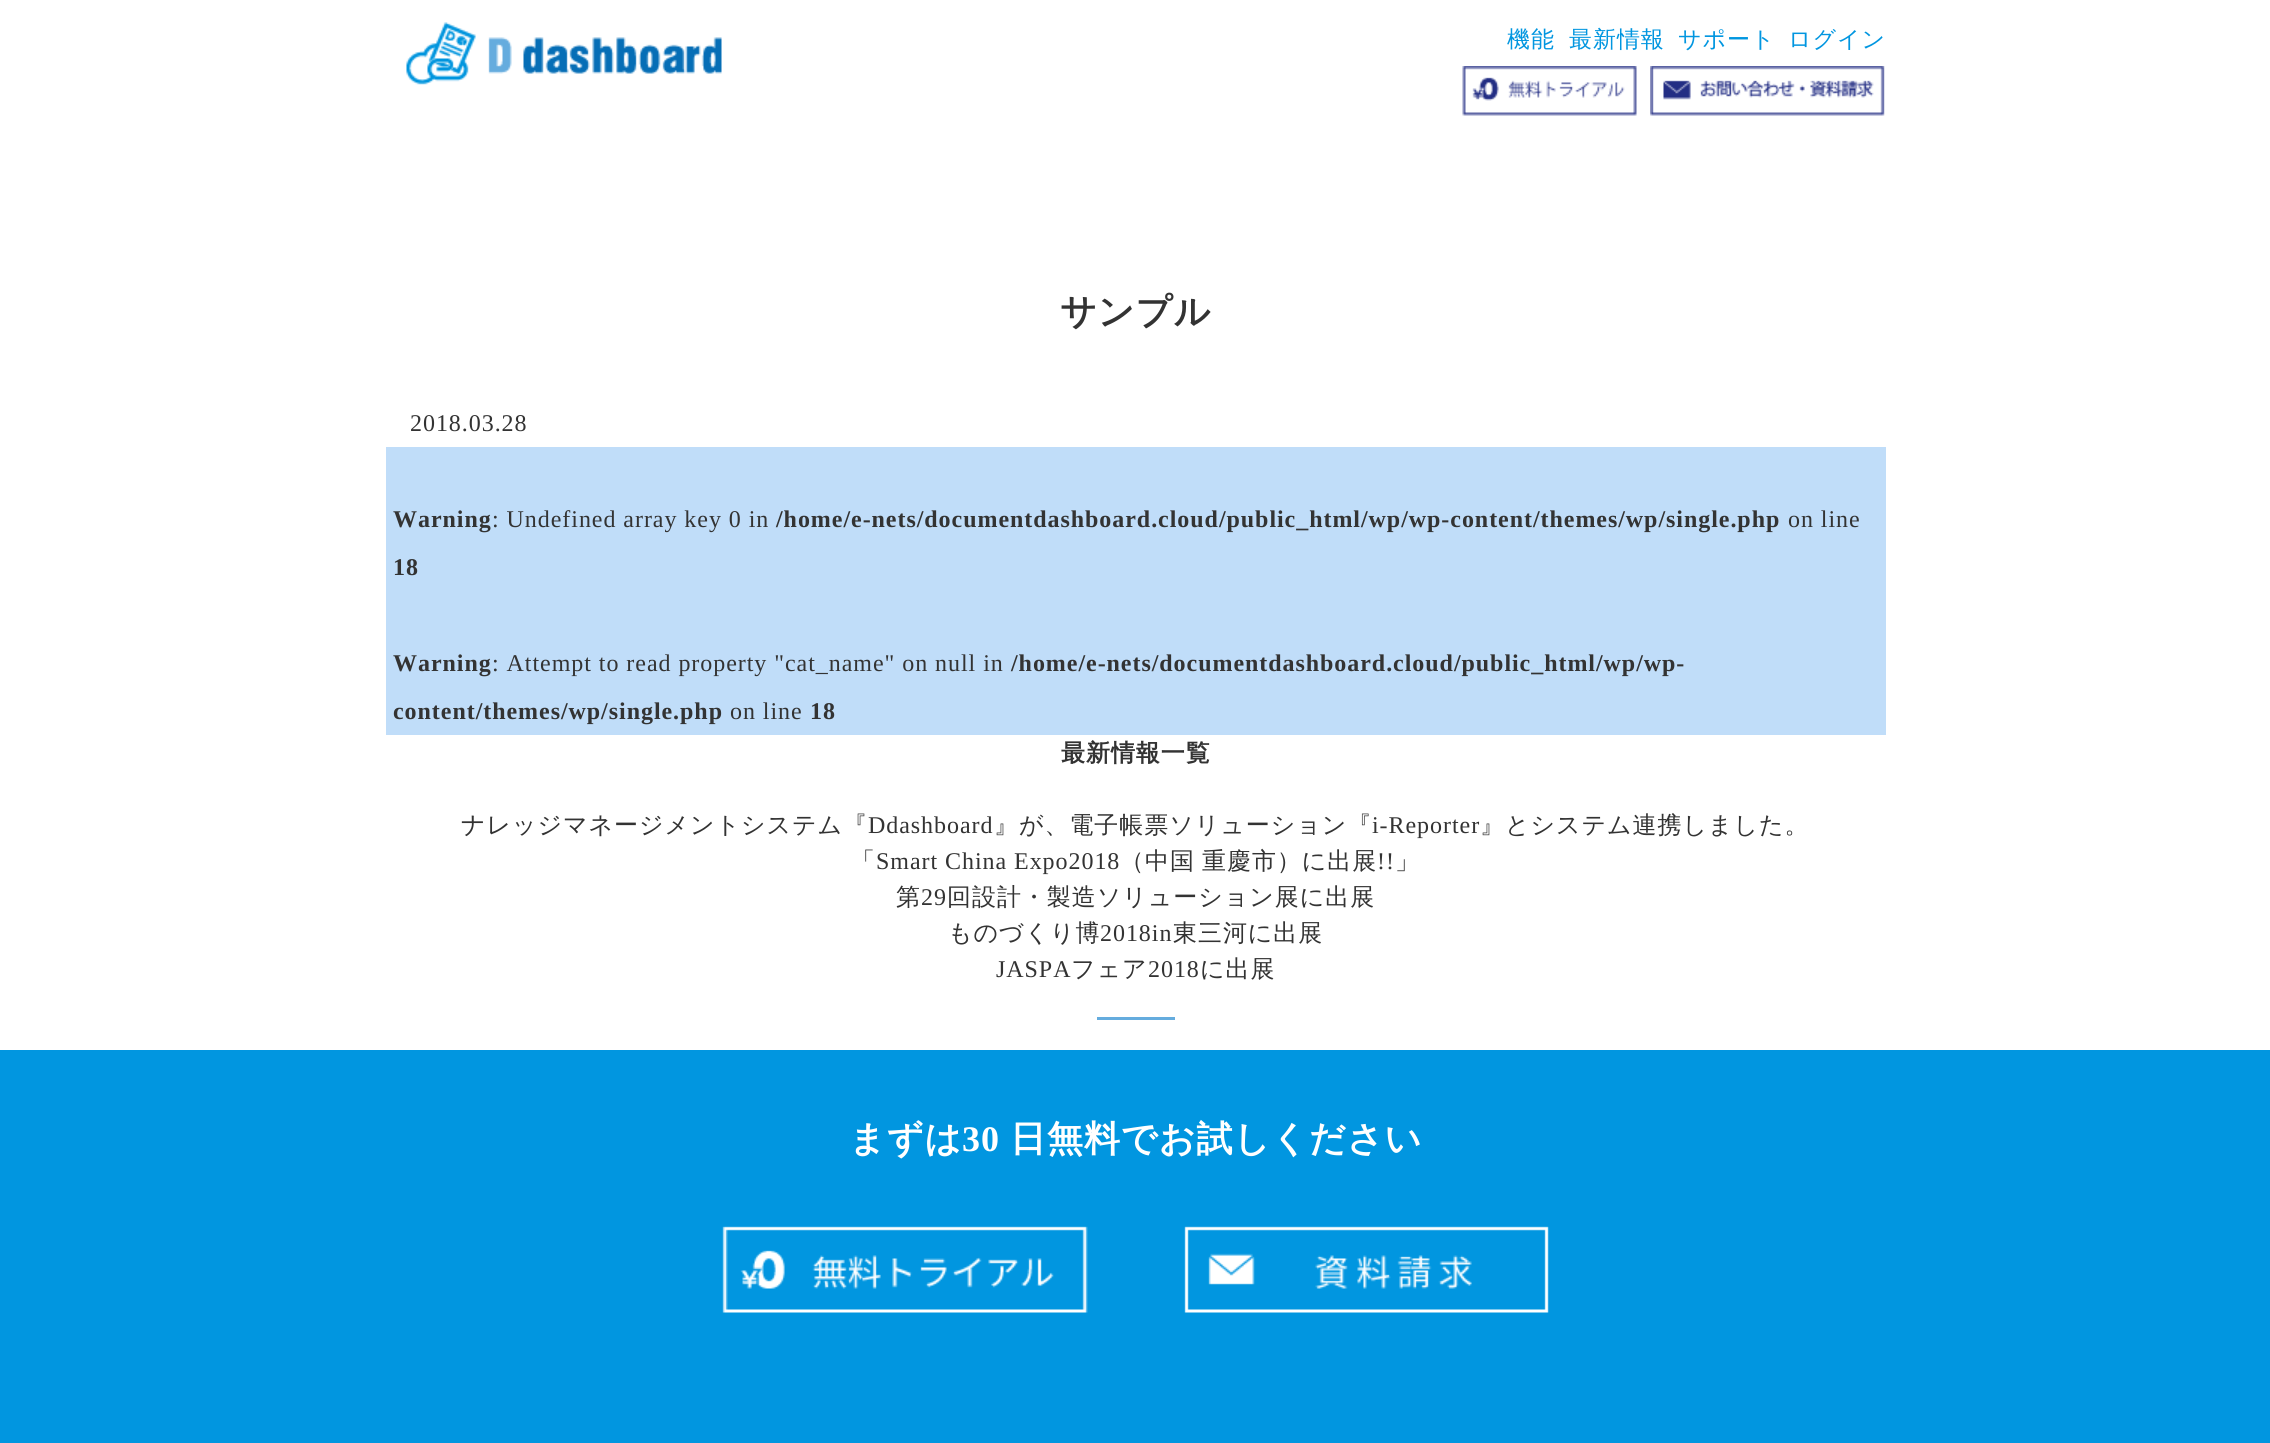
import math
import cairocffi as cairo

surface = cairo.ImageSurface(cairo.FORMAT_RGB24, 2270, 1443)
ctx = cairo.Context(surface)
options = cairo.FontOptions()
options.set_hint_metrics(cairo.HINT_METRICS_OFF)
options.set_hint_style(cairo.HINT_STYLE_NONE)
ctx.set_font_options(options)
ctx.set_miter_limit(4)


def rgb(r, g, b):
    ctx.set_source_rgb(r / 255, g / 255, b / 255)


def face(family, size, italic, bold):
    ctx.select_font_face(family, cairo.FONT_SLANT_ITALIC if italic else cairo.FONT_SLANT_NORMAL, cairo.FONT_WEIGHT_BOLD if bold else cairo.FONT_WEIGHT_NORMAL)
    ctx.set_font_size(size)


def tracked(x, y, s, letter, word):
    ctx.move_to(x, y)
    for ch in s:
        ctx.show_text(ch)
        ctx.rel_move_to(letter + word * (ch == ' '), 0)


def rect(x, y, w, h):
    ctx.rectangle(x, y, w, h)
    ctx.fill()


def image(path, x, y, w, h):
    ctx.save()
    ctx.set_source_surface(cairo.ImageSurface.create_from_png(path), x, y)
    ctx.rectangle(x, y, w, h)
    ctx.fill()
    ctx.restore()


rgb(255, 255, 255)
ctx.paint()
image('image0.png', 406, 22, 316, 63)
face('WenQuanYi Zen Hei Medium', 23, 0, 0)
rgb(1, 150, 224)
tracked(1507, 47, '機能', 0.95, 0)
tracked(1569, 47, '最新情報', 0.95, 0)
tracked(1678, 47, 'サポート', 0.95, 0)
tracked(1788, 47, 'ログイン', 0.95, 0)
image('image1.png', 1462, 66, 175, 50)
image('image2.png', 1650, 66, 235, 50)
face('WenQuanYi Zen Hei', 36, 0, 1)
rgb(51, 51, 51)
tracked(1060, 324, 'サンプル', 0.95, 0)
face('Liberation Serif', 24, 0, 0)
tracked(410, 431, '2018.03.28', 0.95, 0)
rgb(192, 221, 249)
rect(386, 447, 1500, 288)
face('Liberation Serif', 24, 0, 1)
rgb(51, 51, 51)
tracked(393, 527, 'Warning', 0.95, 0)
face('Liberation Serif', 24, 0, 0)
tracked(492, 527, ': Undefined array key 0 in', 0.95, 0)
face('Liberation Serif', 24, 0, 1)
tracked(776, 527, '/home/e-nets/documentdashboard.cloud/public_html/wp/wp-content/themes/wp/single.php', 0.95, 0)
face('Liberation Serif', 24, 0, 0)
tracked(1788, 527, 'on line', 0.95, 0)
face('Liberation Serif', 24, 0, 1)
tracked(393, 575, '18', 0.95, 0)
tracked(393, 671, 'Warning', 0.95, 0)
face('Liberation Serif', 24, 0, 0)
tracked(492, 671, ': Attempt to read property "cat_name" on null in', 0.95, 0)
face('Liberation Serif', 24, 0, 1)
tracked(1011, 671, '/home/e-nets/documentdashboard.cloud/public_html/wp/wp-', 0.95, 0)
tracked(393, 719, 'content/themes/wp/single.php', 0.95, 0)
face('Liberation Serif', 24, 0, 0)
tracked(730, 719, 'on line', 0.95, 0)
face('Liberation Serif', 24, 0, 1)
tracked(810, 719, '18', 0.95, 0)
face('WenQuanYi Zen Hei', 24, 0, 1)
tracked(1061, 761, '最新情報一覧', 0.95, 0)
face('WenQuanYi Zen Hei Medium', 24, 0, 0)
tracked(461, 833, 'ナレッジマネージメントシステム『', 0.95, 0)
face('Liberation Serif', 24, 0, 0)
tracked(868, 833, 'Ddashboard', 0.95, 0)
face('WenQuanYi Zen Hei Medium', 24, 0, 0)
tracked(994, 833, '』が、電子帳票ソリューション『', 0.95, 0)
face('Liberation Serif', 24, 0, 0)
tracked(1372, 833, 'i-Reporter', 0.95, 0)
face('WenQuanYi Zen Hei Medium', 24, 0, 0)
tracked(1480, 833, '』とシステム連携しました。', 0.95, 0)
tracked(851, 869, '「', 0.95, 0)
face('Liberation Serif', 24, 0, 0)
tracked(876, 869, 'Smart China Expo2018', 0.95, 0)
face('WenQuanYi Zen Hei Medium', 24, 0, 0)
tracked(1120, 869, '（中国', 0.95, 0)
tracked(1202, 869, '重慶市）に出展', 0.95, 0)
face('Liberation Serif', 24, 0, 0)
tracked(1377, 869, '!!', 0.95, 0)
face('WenQuanYi Zen Hei Medium', 24, 0, 0)
tracked(1395, 869, '」', 0.95, 0)
tracked(896, 905, '第', 0.95, 0)
face('Liberation Serif', 24, 0, 0)
tracked(921, 905, '29', 0.95, 0)
face('WenQuanYi Zen Hei Medium', 24, 0, 0)
tracked(947, 905, '回設計・製造ソリューション展に出展', 0.95, 0)
tracked(948, 941, 'ものづくり博', 0.95, 0)
face('Liberation Serif', 24, 0, 0)
tracked(1100, 941, '2018in', 0.95, 0)
face('WenQuanYi Zen Hei Medium', 24, 0, 0)
tracked(1173, 941, '東三河に出展', 0.95, 0)
face('Liberation Serif', 24, 0, 0)
tracked(996, 977, 'JASPA', 0.95, 0)
face('WenQuanYi Zen Hei Medium', 24, 0, 0)
tracked(1071, 977, 'フェア', 0.95, 0)
face('Liberation Serif', 24, 0, 0)
tracked(1148, 977, '2018', 0.95, 0)
face('WenQuanYi Zen Hei Medium', 24, 0, 0)
tracked(1200, 977, 'に出展', 0.95, 0)
rgb(101, 172, 222)
rect(1097, 1017, 78, 3)
rgb(1, 150, 224)
rect(0, 1050, 2270, 393)
face('WenQuanYi Zen Hei', 36, 0, 1)
rgb(255, 255, 255)
tracked(849, 1151, 'まずは', 0.95, 0)
face('Liberation Serif', 36, 0, 1)
tracked(962, 1151, '30', 0.95, 0)
face('WenQuanYi Zen Hei', 36, 0, 1)
tracked(1010, 1151, '日無料でお試しください', 0.95, 0)
image('image3.png', 722, 1226, 366, 87)
image('image4.png', 1184, 1226, 365, 87)
surface.write_to_png('render.png')
